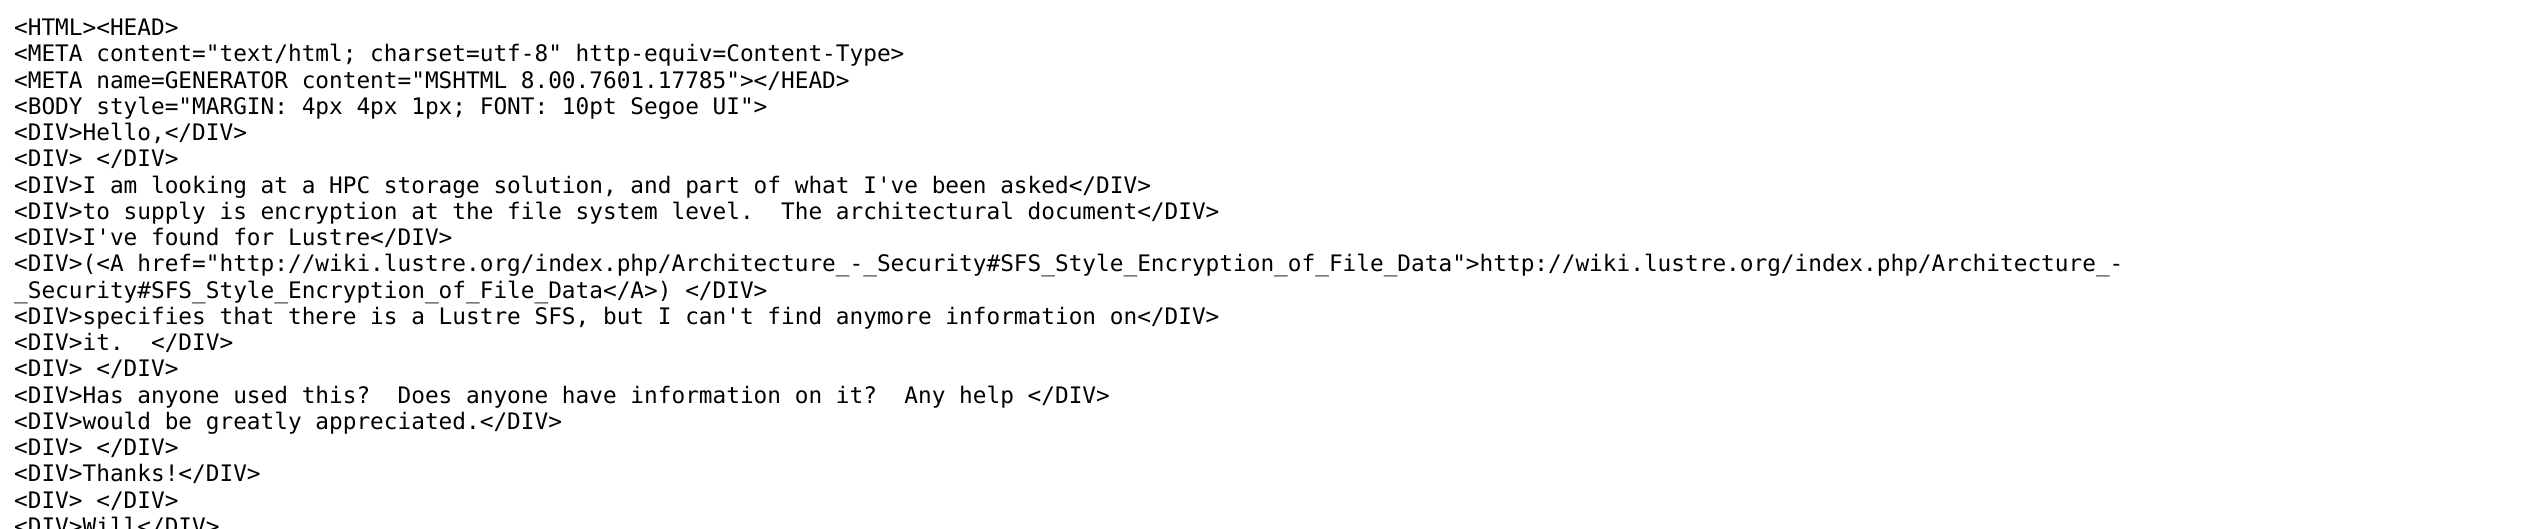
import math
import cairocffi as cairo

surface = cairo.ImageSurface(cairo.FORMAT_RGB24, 2546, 529)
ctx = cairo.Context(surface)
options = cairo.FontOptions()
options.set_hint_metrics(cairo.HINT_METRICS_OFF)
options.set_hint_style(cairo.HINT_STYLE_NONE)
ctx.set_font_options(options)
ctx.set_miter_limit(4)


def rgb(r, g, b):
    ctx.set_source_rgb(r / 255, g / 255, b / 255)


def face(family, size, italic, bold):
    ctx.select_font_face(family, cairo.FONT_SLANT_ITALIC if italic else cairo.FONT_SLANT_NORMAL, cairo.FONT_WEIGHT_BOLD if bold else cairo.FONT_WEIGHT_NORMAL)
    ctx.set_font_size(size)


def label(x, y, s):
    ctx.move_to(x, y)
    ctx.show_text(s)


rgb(255, 255, 255)
ctx.paint()
face('DejaVu Sans Mono', 22.75, 0, 0)
rgb(0, 0, 0)
label(14, 35, '<HTML><HEAD>')
label(14, 61, '<META content="text/html; charset=utf-8" http-equiv=Content-Type>')
label(14, 88, '<META name=GENERATOR content="MSHTML 8.00.7601.17785"></HEAD>')
label(14, 114, '<BODY style="MARGIN: 4px 4px 1px; FONT: 10pt Segoe UI">')
label(14, 140, '<DIV>Hello,</DIV>')
label(14, 166, '<DIV> </DIV>')
label(14, 193, '<DIV>I am looking at a HPC storage solution, and part of what I\'ve been asked</DIV>')
label(14, 219, '<DIV>to supply is encryption at the file system level.  The architectural document</DIV>')
label(14, 245, '<DIV>I\'ve found for Lustre</DIV>')
label(14, 271, '<DIV>(<A href="http://wiki.lustre.org/index.php/Architecture_-_Security#SFS_Style_Encryption_of_File_Data">http://wiki.lustre.org/index.php/Architecture_-')
label(14, 298, '_Security#SFS_Style_Encryption_of_File_Data</A>) </DIV>')
label(14, 324, '<DIV>specifies that there is a Lustre SFS, but I can\'t find anymore information on</DIV>')
label(14, 350, '<DIV>it.  </DIV>')
label(14, 376, '<DIV> </DIV>')
label(14, 403, '<DIV>Has anyone used this?  Does anyone have information on it?  Any help </DIV>')
label(14, 429, '<DIV>would be greatly appreciated.</DIV>')
label(14, 455, '<DIV> </DIV>')
label(14, 481, '<DIV>Thanks!</DIV>')
label(14, 508, '<DIV> </DIV>')
label(14, 534, '<DIV>Will</DIV>')
surface.write_to_png('render.png')
